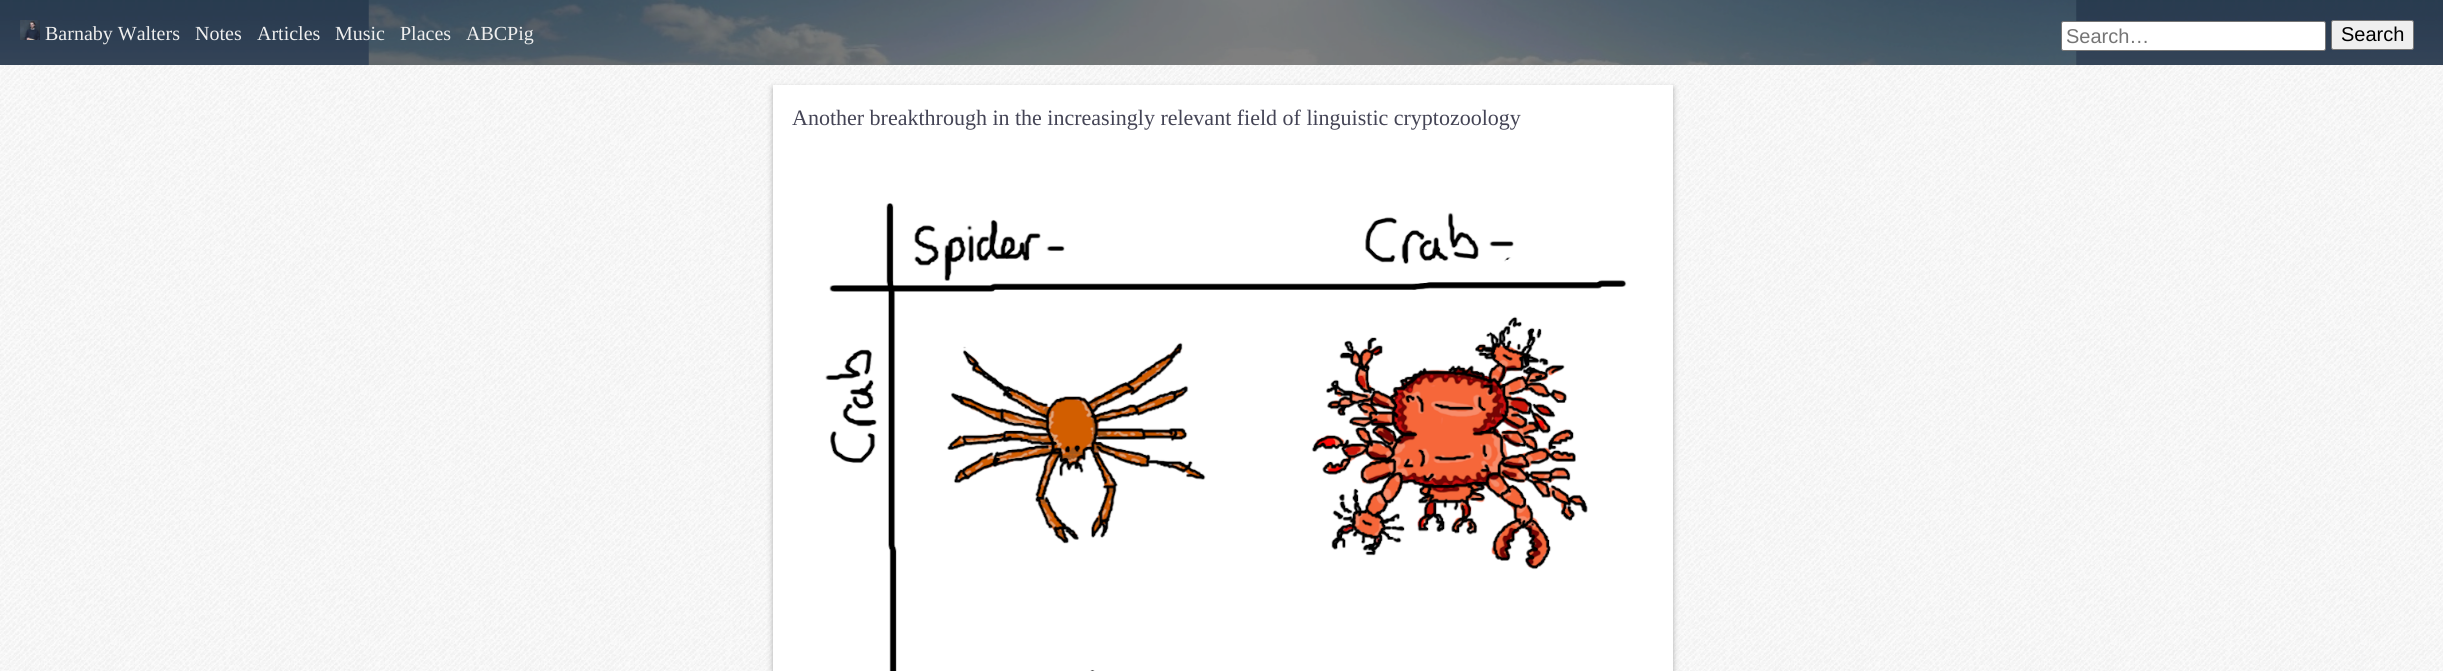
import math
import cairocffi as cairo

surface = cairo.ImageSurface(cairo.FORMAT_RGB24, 2443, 671)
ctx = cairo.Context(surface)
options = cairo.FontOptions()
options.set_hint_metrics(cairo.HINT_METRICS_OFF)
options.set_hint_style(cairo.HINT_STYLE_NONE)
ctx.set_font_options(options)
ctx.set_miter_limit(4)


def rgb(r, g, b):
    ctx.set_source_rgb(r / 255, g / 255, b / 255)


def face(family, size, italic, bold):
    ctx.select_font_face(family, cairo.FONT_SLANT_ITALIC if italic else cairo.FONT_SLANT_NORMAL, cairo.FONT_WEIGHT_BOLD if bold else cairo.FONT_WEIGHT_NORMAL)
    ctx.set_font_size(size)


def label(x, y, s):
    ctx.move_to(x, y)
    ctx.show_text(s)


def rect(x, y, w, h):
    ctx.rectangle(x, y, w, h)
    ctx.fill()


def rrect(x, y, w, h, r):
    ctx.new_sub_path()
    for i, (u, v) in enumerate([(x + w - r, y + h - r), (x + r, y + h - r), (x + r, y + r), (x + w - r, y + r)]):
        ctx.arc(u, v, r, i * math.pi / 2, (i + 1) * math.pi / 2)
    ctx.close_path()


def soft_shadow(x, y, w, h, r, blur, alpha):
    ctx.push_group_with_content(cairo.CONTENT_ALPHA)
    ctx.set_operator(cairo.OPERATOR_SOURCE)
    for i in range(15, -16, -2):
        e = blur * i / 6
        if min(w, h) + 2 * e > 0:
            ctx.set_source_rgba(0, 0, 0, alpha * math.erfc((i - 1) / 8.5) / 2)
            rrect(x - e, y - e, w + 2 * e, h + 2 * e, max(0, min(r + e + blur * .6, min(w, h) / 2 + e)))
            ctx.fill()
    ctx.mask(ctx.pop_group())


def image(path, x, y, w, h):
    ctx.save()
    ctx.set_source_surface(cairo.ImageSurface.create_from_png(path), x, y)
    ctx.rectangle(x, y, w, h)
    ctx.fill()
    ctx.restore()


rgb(255, 255, 255)
ctx.paint()
image('image0.png', 0, 65, 2443, 606)
image('image1.png', 0, 0, 2443, 65)
image('image2.png', 20, 20, 20, 20)
face('Liberation Serif', 20, 0, 0)
rgb(238, 238, 238)
label(45, 40, 'Barnaby Walters')
label(195, 40, 'Notes')
label(257, 40, 'Articles')
label(335, 40, 'Music')
label(400, 40, 'Places')
label(466, 40, 'ABCPig')
rgb(255, 255, 255)
rrect(2061.5, 21.5, 264, 29, 2)
ctx.fill_preserve()
rgb(118, 118, 118)
ctx.set_line_width(1)
ctx.stroke()
face('Liberation Sans', 20, 0, 0)
rgb(117, 117, 117)
label(2066, 43, 'Search…')
rgb(239, 239, 239)
rrect(2331.5, 20.5, 82, 29, 2)
ctx.fill_preserve()
rgb(118, 118, 118)
ctx.stroke()
rgb(0, 0, 0)
label(2341, 41, 'Search')
rgb(170, 170, 170)
soft_shadow(773, 88, 900, 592, 0, 3, 1)
rgb(255, 255, 255)
rect(773, 85, 900, 586)
face('Liberation Serif', 22, 0, 0)
rgb(68, 68, 85)
label(792, 125, 'Another breakthrough in the increasingly relevant field of linguistic cryptozoology')
image('image3.png', 825, 203, 802, 468)
surface.write_to_png('render.png')
